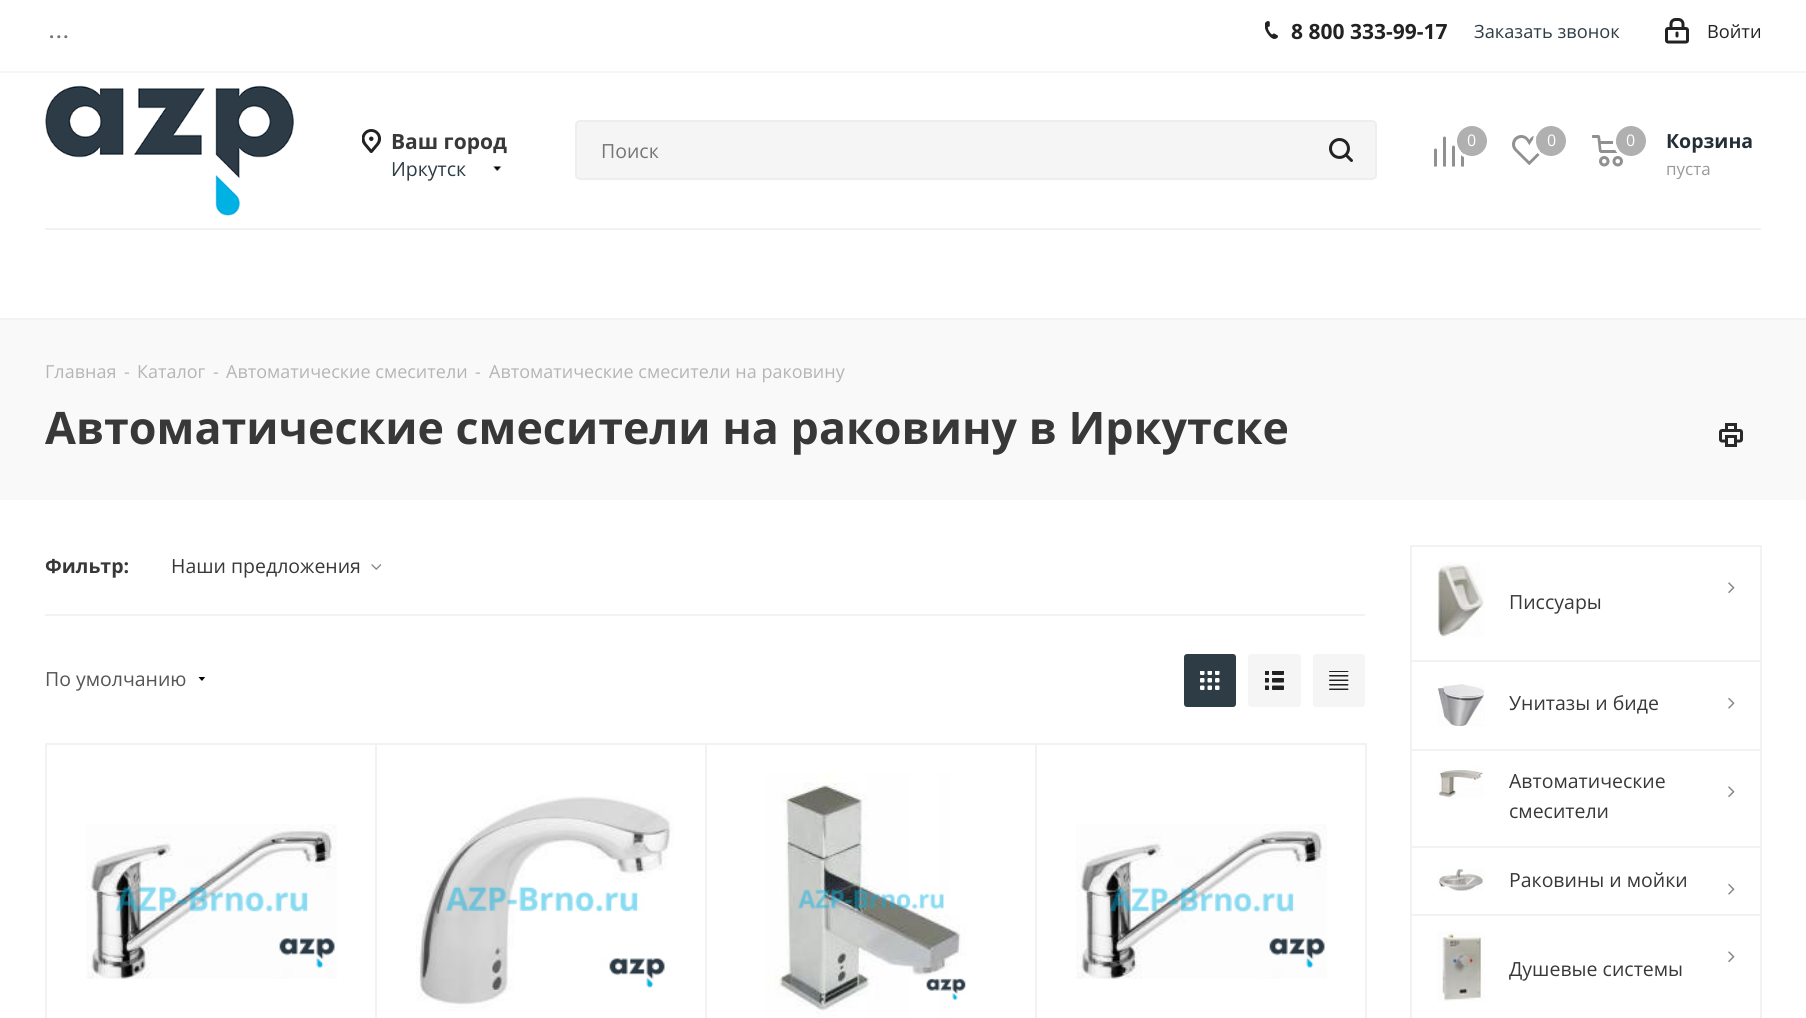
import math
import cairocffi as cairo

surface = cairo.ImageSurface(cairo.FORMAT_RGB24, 1806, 1018)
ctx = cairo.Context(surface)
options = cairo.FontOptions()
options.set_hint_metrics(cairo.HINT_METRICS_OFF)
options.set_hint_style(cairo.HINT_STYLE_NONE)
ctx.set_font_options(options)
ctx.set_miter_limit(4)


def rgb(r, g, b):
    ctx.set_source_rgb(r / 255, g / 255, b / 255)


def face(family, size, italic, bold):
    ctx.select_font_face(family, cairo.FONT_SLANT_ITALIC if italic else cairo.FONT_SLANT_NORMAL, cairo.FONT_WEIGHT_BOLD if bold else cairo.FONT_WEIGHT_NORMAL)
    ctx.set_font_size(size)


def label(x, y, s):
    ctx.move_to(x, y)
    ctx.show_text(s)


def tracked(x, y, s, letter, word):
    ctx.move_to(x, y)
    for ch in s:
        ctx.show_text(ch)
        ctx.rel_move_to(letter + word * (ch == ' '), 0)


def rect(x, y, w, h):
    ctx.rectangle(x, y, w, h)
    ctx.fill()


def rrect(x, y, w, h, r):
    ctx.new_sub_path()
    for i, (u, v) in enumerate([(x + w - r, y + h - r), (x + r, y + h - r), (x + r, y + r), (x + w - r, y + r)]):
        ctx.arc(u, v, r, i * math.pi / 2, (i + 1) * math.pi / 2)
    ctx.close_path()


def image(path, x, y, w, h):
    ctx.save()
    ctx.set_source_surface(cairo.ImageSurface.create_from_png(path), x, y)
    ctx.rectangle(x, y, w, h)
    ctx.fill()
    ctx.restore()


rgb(255, 255, 255)
ctx.paint()
rgb(246, 246, 246)
rect(0, 71, 1806, 2)
face('Open Sans', 18, 0, 1)
rgb(117, 117, 117)
tracked(49, 38, '...', 2, 0)
image('image0.png', 1265, 21, 13, 18)
face('Open Sans', 21, 0, 1)
rgb(34, 34, 34)
label(1291, 39, '8 800 333-99-17')
face('Open Sans', 18.25, 0, 0)
rgb(46, 60, 69)
label(1474, 38, 'Заказать звонок')
image('image1.png', 1665, 18, 24, 26)
rgb(34, 34, 34)
label(1707, 38, 'Войти')
image('image2.png', 45, 85, 249, 131)
image('image3.png', 362, 129, 19, 24)
face('Open Sans', 21, 0, 1)
rgb(56, 56, 56)
label(391, 149, 'Ваш город')
face('Open Sans', 19.5, 0, 0)
rgb(46, 60, 69)
label(391, 176, 'Иркутск')
image('image4.png', 493, 166, 9, 5)
rgb(245, 245, 245)
rrect(576, 121, 800, 58, 4)
ctx.fill_preserve()
rgb(238, 238, 238)
ctx.stroke()
rgb(117, 117, 117)
label(601, 158, 'Поиск')
image('image5.png', 1329, 138, 24, 24)
image('image6.png', 1434, 136, 30, 31)
ctx.arc(1472, 141, 16.5, 0, 2 * math.pi)
rgb(255, 255, 255)
ctx.set_line_width(3)
ctx.stroke()
rgb(176, 176, 176)
ctx.arc(1472, 141, 15, 0, 2 * math.pi)
ctx.fill()
face('Open Sans', 16, 0, 0)
rgb(255, 255, 255)
label(1467, 146, '0')
image('image7.png', 1512, 135, 30, 30)
ctx.arc(1551, 141, 16.5, 0, 2 * math.pi)
ctx.stroke()
rgb(176, 176, 176)
ctx.arc(1551, 141, 15, 0, 2 * math.pi)
ctx.fill()
rgb(255, 255, 255)
label(1547, 146, '0')
image('image8.png', 1592, 135, 31, 32)
ctx.arc(1631, 141, 16.5, 0, 2 * math.pi)
ctx.stroke()
ctx.arc(1631, 141, 16.5, 0, 2 * math.pi)
ctx.stroke()
rgb(176, 176, 176)
ctx.arc(1631, 141, 15, 0, 2 * math.pi)
ctx.fill()
rgb(255, 255, 255)
label(1626, 146, '0')
face('Open Sans', 19.5, 0, 1)
rgb(35, 47, 54)
label(1666, 148, 'Корзина')
face('Open Sans', 17, 0, 0)
rgb(153, 153, 153)
label(1666, 175, 'пуста')
rgb(242, 242, 242)
rect(0, 318, 1806, 2)
rect(45, 228, 1716, 2)
rgb(249, 249, 249)
rect(0, 320, 1806, 180)
face('Open Sans', 18, 0, 0)
rgb(182, 181, 181)
label(45, 378, 'Главная')
label(124, 378, '-')
label(137, 378, 'Каталог')
label(213, 378, '-')
label(226, 378, 'Автоматические смесители')
label(475, 378, '-')
label(489, 378, 'Автоматические смесители на раковину')
face('Open Sans', 44.8, 0, 1)
rgb(56, 56, 56)
label(45, 444, 'Автоматические смесители на раковину в Иркутске')
image('image9.png', 1719, 423, 24, 24)
rgb(242, 242, 242)
rect(45, 614, 1320, 2)
face('Open Sans', 19.5, 0, 1)
rgb(56, 56, 56)
label(45, 573, 'Фильтр:')
face('Open Sans', 19.5, 0, 0)
label(171, 573, 'Наши предложения')
image('image10.png', 371, 564, 11, 6)
rgb(85, 85, 85)
label(45, 686, 'По умолчанию')
ctx.save()
ctx.rectangle(198, 677, 8, 5)
ctx.clip()
rgb(0, 0, 0)
ctx.new_path()
ctx.move_to(198, 676.5)
ctx.line_to(205.5, 676.5)
ctx.line_to(202, 681)
ctx.close_path()
ctx.fill()
ctx.restore()
rgb(46, 60, 69)
rrect(1184, 654, 52, 53, 3)
ctx.fill()
image('image11.png', 1200, 671, 20, 19)
rgb(245, 245, 245)
rrect(1248, 654, 53, 53, 3)
ctx.fill()
image('image12.png', 1265, 671, 19, 19)
rrect(1313, 654, 52, 53, 3)
ctx.fill()
image('image13.png', 1329, 671, 20, 19)
ctx.rectangle(46, 744, 330, 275)
rgb(242, 242, 242)
ctx.set_line_width(2)
ctx.stroke()
image('image14.png', 86, 824, 251, 155)
ctx.rectangle(376, 744, 330, 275)
ctx.stroke()
image('image15.png', 416, 796, 258, 214)
ctx.rectangle(706, 744, 330, 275)
ctx.stroke()
image('image16.png', 765, 773, 201, 244)
ctx.rectangle(1036, 744, 330, 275)
ctx.stroke()
image('image17.png', 1076, 824, 251, 155)
rect(1410, 545, 351, 2)
rect(1760, 545, 2, 115)
rect(1410, 545, 2, 115)
image('image18.png', 1437, 562, 48, 75)
image('image19.png', 1728, 582, 7, 12)
rgb(56, 56, 56)
label(1509, 609, 'Писсуары')
rgb(242, 242, 242)
rect(1410, 660, 351, 2)
rect(1760, 660, 2, 89)
rect(1410, 660, 2, 89)
image('image20.png', 1437, 684, 48, 42)
rgb(56, 56, 56)
label(1509, 710, 'Унитазы и биде')
image('image21.png', 1728, 697, 7, 12)
rgb(242, 242, 242)
rect(1410, 749, 351, 2)
rect(1760, 749, 2, 97)
rect(1410, 749, 2, 97)
image('image22.png', 1437, 767, 47, 31)
rgb(56, 56, 56)
label(1509, 788, 'Автоматические')
label(1509, 818, 'смесители')
image('image19.png', 1728, 786, 7, 12)
rgb(242, 242, 242)
rect(1410, 846, 351, 2)
rect(1760, 846, 2, 68)
rect(1410, 846, 2, 68)
image('image23.png', 1437, 868, 48, 23)
rgb(56, 56, 56)
label(1509, 887, 'Раковины и мойки')
image('image21.png', 1728, 883, 7, 12)
rgb(242, 242, 242)
rect(1410, 914, 351, 2)
rect(1760, 914, 2, 104)
rect(1410, 914, 2, 104)
image('image24.png', 1437, 931, 48, 71)
image('image19.png', 1728, 951, 7, 12)
rgb(56, 56, 56)
label(1509, 976, 'Душевые системы')
surface.write_to_png('render.png')
